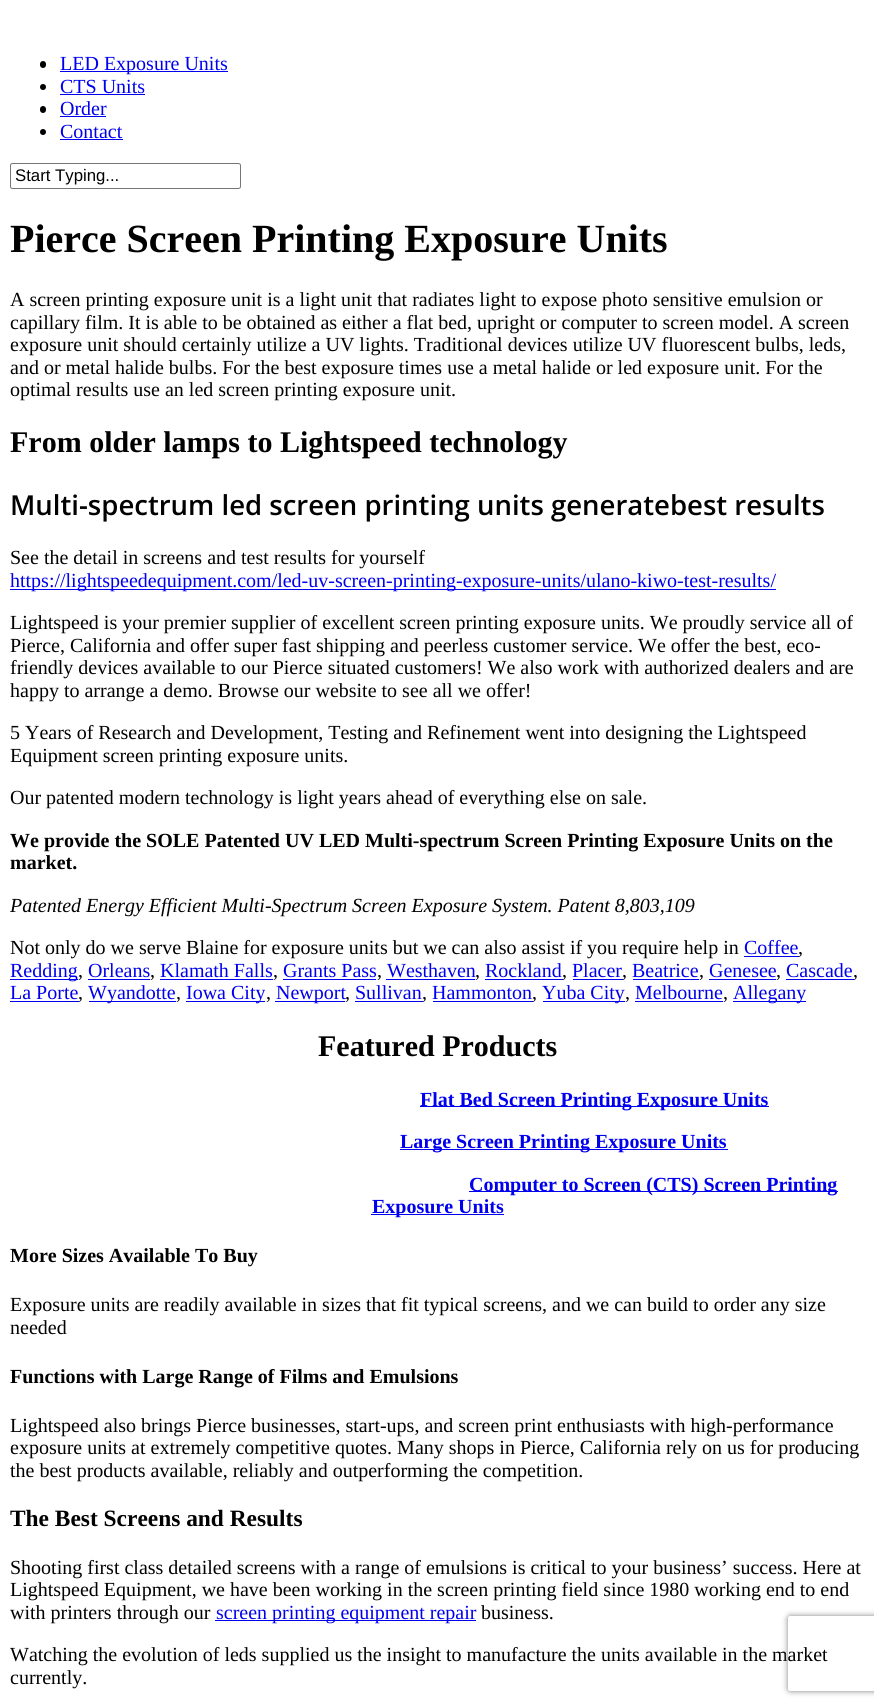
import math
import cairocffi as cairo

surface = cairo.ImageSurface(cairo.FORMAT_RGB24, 874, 1708)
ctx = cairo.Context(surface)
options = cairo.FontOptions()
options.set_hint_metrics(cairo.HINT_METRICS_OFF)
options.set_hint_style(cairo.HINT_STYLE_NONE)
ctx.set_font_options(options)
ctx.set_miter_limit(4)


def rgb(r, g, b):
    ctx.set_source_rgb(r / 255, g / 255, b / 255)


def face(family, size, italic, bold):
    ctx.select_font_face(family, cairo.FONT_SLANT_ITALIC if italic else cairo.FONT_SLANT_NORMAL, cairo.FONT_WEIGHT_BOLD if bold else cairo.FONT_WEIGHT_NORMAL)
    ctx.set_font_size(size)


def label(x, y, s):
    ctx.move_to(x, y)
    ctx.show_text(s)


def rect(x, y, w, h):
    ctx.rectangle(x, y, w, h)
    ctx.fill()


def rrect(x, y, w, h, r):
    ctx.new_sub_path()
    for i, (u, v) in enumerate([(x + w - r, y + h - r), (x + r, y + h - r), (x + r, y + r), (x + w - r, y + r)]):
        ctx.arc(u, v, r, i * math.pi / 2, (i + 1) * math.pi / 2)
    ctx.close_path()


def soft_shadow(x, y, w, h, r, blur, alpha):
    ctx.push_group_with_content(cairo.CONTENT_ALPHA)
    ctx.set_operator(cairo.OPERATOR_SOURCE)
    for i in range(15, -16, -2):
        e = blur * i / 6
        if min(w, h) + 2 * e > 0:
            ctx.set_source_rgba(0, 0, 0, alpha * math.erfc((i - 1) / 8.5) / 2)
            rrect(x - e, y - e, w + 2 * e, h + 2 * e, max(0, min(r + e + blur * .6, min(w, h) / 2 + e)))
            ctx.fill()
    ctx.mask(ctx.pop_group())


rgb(255, 255, 255)
ctx.paint()
rgb(0, 0, 0)
rrect(40, 61, 6, 7, 3)
ctx.fill()
rgb(0, 0, 238)
rect(60, 71, 168, 1)
face('Liberation Serif', 20, 0, 0)
label(60, 70, 'LED Exposure Units')
rgb(0, 0, 0)
ctx.new_path()
ctx.arc(43, 87, 3, 0, 2 * math.pi)
ctx.fill()
rgb(0, 0, 238)
label(60, 93, 'CTS Units')
rect(60, 94, 85, 1)
rgb(0, 0, 0)
rrect(40, 106, 6, 7, 3)
ctx.fill()
rgb(0, 0, 238)
label(60, 115, 'Order')
rect(60, 116, 46, 1)
rgb(0, 0, 0)
ctx.new_path()
ctx.arc(43, 132, 3, 0, 2 * math.pi)
ctx.fill()
rgb(0, 0, 238)
label(60, 138, 'Contact')
rect(60, 139, 63, 1)
rrect(10.5, 163.5, 230, 25, 2)
rgb(118, 118, 118)
ctx.set_line_width(1)
ctx.stroke()
face('Liberation Sans', 16.75, 0, 0)
rgb(0, 0, 0)
label(15, 181, 'Start Typing...')
face('Liberation Serif', 40, 0, 1)
label(10, 252, 'Pierce Screen Printing Exposure Units')
face('Liberation Serif', 20, 0, 0)
label(10, 306, 'A screen printing exposure unit is a light unit that radiates light to expose photo sensitive emulsion or')
label(10, 329, 'capillary film. It is able to be obtained as either a flat bed, upright or computer to screen model. A screen')
label(10, 351, 'exposure unit should certainly utilize a UV lights. Traditional devices utilize UV fluorescent bulbs, leds,')
label(10, 374, 'and or metal halide bulbs. For the best exposure times use a metal halide or led exposure unit. For the')
label(10, 396, 'optimal results use an led screen printing exposure unit.')
face('Liberation Serif', 30, 0, 1)
label(10, 452, 'From older lamps to Lightspeed technology')
face('Open Sans SemiBold', 27.5, 0, 0)
label(10, 515, 'Multi-spectrum led screen printing units generatebest results')
face('Liberation Serif', 20, 0, 0)
label(10, 564, 'See the detail in screens and test results for yourself')
rgb(0, 0, 238)
rect(10, 589, 766, 1)
label(10, 587, 'https://lightspeedequipment.com/led-uv-screen-printing-exposure-units/ulano-kiwo-test-results/')
rgb(0, 0, 0)
label(10, 629, 'Lightspeed is your premier supplier of excellent screen printing exposure units. We proudly service all of')
label(10, 652, 'Pierce, California and offer super fast shipping and peerless customer service. We offer the best, eco-')
label(10, 674, 'friendly devices available to our Pierce situated customers! We also work with authorized dealers and are')
label(10, 697, 'happy to arrange a demo. Browse our website to see all we offer!')
label(10, 739, '5 Years of Research and Development, Testing and Refinement went into designing the Lightspeed')
label(10, 762, 'Equipment screen printing exposure units.')
label(10, 804, 'Our patented modern technology is light years ahead of everything else on sale.')
face('Liberation Serif', 20, 0, 1)
label(10, 847, 'We provide the SOLE Patented UV LED Multi-spectrum Screen Printing Exposure Units on the')
label(10, 869, 'market.')
face('Liberation Serif', 20, 1, 0)
label(10, 912, 'Patented Energy Efficient Multi-Spectrum Screen Exposure System. Patent 8,803,109')
face('Liberation Serif', 20, 0, 0)
label(10, 954, 'Not only do we serve Blaine for exposure units but we can also assist if you require help in')
rgb(0, 0, 238)
label(744, 954, 'Coffee')
rect(744, 956, 55, 1)
rgb(0, 0, 0)
label(798, 954, ',')
rgb(0, 0, 238)
rect(10, 979, 68, 1)
label(10, 977, 'Redding')
rgb(0, 0, 0)
label(78, 977, ',')
rgb(0, 0, 238)
label(88, 977, 'Orleans')
rect(88, 979, 62, 1)
rgb(0, 0, 0)
label(150, 977, ',')
rgb(0, 0, 238)
label(160, 977, 'Klamath Falls')
rect(160, 979, 113, 1)
rgb(0, 0, 0)
label(273, 977, ',')
rgb(0, 0, 238)
label(283, 977, 'Grants Pass')
rect(283, 979, 93, 1)
rgb(0, 0, 0)
label(377, 977, ',')
rgb(0, 0, 238)
label(387, 977, 'Westhaven')
rect(386, 979, 89, 1)
rgb(0, 0, 0)
label(475, 977, ',')
rgb(0, 0, 238)
label(485, 977, 'Rockland')
rect(485, 979, 78, 1)
rgb(0, 0, 0)
label(562, 977, ',')
rgb(0, 0, 238)
label(572, 977, 'Placer')
rect(573, 979, 50, 1)
rgb(0, 0, 0)
label(622, 977, ',')
rgb(0, 0, 238)
label(632, 977, 'Beatrice')
rect(633, 979, 66, 1)
rgb(0, 0, 0)
label(699, 977, ',')
rgb(0, 0, 238)
label(709, 977, 'Genesee')
rect(709, 979, 67, 1)
rgb(0, 0, 0)
label(776, 977, ',')
rgb(0, 0, 238)
label(786, 977, 'Cascade')
rect(786, 979, 68, 1)
rgb(0, 0, 0)
label(853, 977, ',')
rgb(0, 0, 238)
label(10, 999, 'La Porte')
rect(10, 1001, 69, 1)
rgb(0, 0, 0)
label(78, 999, ',')
rgb(0, 0, 238)
rect(89, 1001, 87, 1)
label(88, 999, 'Wyandotte')
rgb(0, 0, 0)
label(176, 999, ',')
rgb(0, 0, 238)
rect(186, 1001, 79, 1)
label(186, 999, 'Iowa City')
rgb(0, 0, 0)
label(266, 999, ',')
rgb(0, 0, 238)
rect(275, 1001, 70, 1)
label(276, 999, 'Newport')
rgb(0, 0, 0)
label(345, 999, ',')
rgb(0, 0, 238)
label(355, 999, 'Sullivan')
rect(355, 1001, 68, 1)
rgb(0, 0, 0)
label(422, 999, ',')
rgb(0, 0, 238)
label(432, 999, 'Hammonton')
rect(433, 1001, 100, 1)
rgb(0, 0, 0)
label(532, 999, ',')
rgb(0, 0, 238)
rect(543, 1001, 82, 1)
label(542, 999, 'Yuba City')
rgb(0, 0, 0)
label(625, 999, ',')
rgb(0, 0, 238)
label(635, 999, 'Melbourne')
rect(635, 1001, 88, 1)
rgb(0, 0, 0)
label(723, 999, ',')
rgb(0, 0, 238)
rect(733, 1001, 73, 1)
label(733, 999, 'Allegany')
face('Liberation Serif', 30, 0, 1)
rgb(0, 0, 0)
label(318, 1056, 'Featured Products')
rgb(0, 0, 238)
rect(420, 1106, 349, 1)
face('Liberation Serif', 20, 0, 1)
label(420, 1106, 'Flat Bed Screen Printing Exposure Units')
rect(400, 1149, 328, 1)
label(400, 1148, 'Large Screen Printing Exposure Units')
rect(469, 1191, 369, 1)
label(469, 1191, 'Computer to Screen (CTS) Screen Printing')
rect(371, 1214, 133, 1)
label(372, 1213, 'Exposure Units')
rgb(0, 0, 0)
label(10, 1262, 'More Sizes Available To Buy')
face('Liberation Serif', 20, 0, 0)
label(10, 1311, 'Exposure units are readily available in sizes that fit typical screens, and we can build to order any size')
label(10, 1334, 'needed')
face('Liberation Serif', 20, 0, 1)
label(10, 1383, 'Functions with Large Range of Films and Emulsions')
face('Liberation Serif', 20, 0, 0)
label(10, 1432, 'Lightspeed also brings Pierce businesses, start-ups, and screen print enthusiasts with high-performance')
label(10, 1454, 'exposure units at extremely competitive quotes. Many shops in Pierce, California rely on us for producing')
label(10, 1477, 'the best products available, reliably and outperforming the competition.')
face('Liberation Serif', 23.4, 0, 1)
label(10, 1526, 'The Best Screens and Results')
face('Liberation Serif', 20, 0, 0)
label(10, 1574, 'Shooting first class detailed screens with a range of emulsions is critical to your business’ success. Here at')
label(10, 1596, 'Lightspeed Equipment, we have been working in the screen printing field since 1980 working end to end')
label(10, 1619, 'with printers through our')
rgb(0, 0, 238)
rect(215, 1620, 261, 1)
label(216, 1619, 'screen printing equipment repair')
rgb(0, 0, 0)
label(481, 1619, 'business.')
label(10, 1661, 'Watching the evolution of leds supplied us the insight to manufacture the units available in the market')
label(10, 1684, 'currently.')
ctx.save()
ctx.set_fill_rule(cairo.FILL_RULE_EVEN_ODD)
ctx.new_path()
ctx.move_to(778, 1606)
ctx.line_to(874, 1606)
ctx.line_to(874, 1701)
ctx.line_to(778, 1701)
ctx.close_path()
ctx.move_to(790.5, 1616)
ctx.line_to(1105.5, 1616)
ctx.curve_to(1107, 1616, 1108, 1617, 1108, 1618.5)
ctx.line_to(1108, 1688.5)
ctx.curve_to(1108, 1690, 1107, 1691, 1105.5, 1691)
ctx.line_to(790.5, 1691)
ctx.curve_to(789, 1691, 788, 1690, 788, 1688.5)
ctx.line_to(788, 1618.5)
ctx.curve_to(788, 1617, 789, 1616, 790.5, 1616)
ctx.close_path()
ctx.clip()
rgb(128, 128, 128)
soft_shadow(788, 1616, 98, 75, 2.5, 3, 1)
ctx.restore()
surface.write_to_png('render.png')
